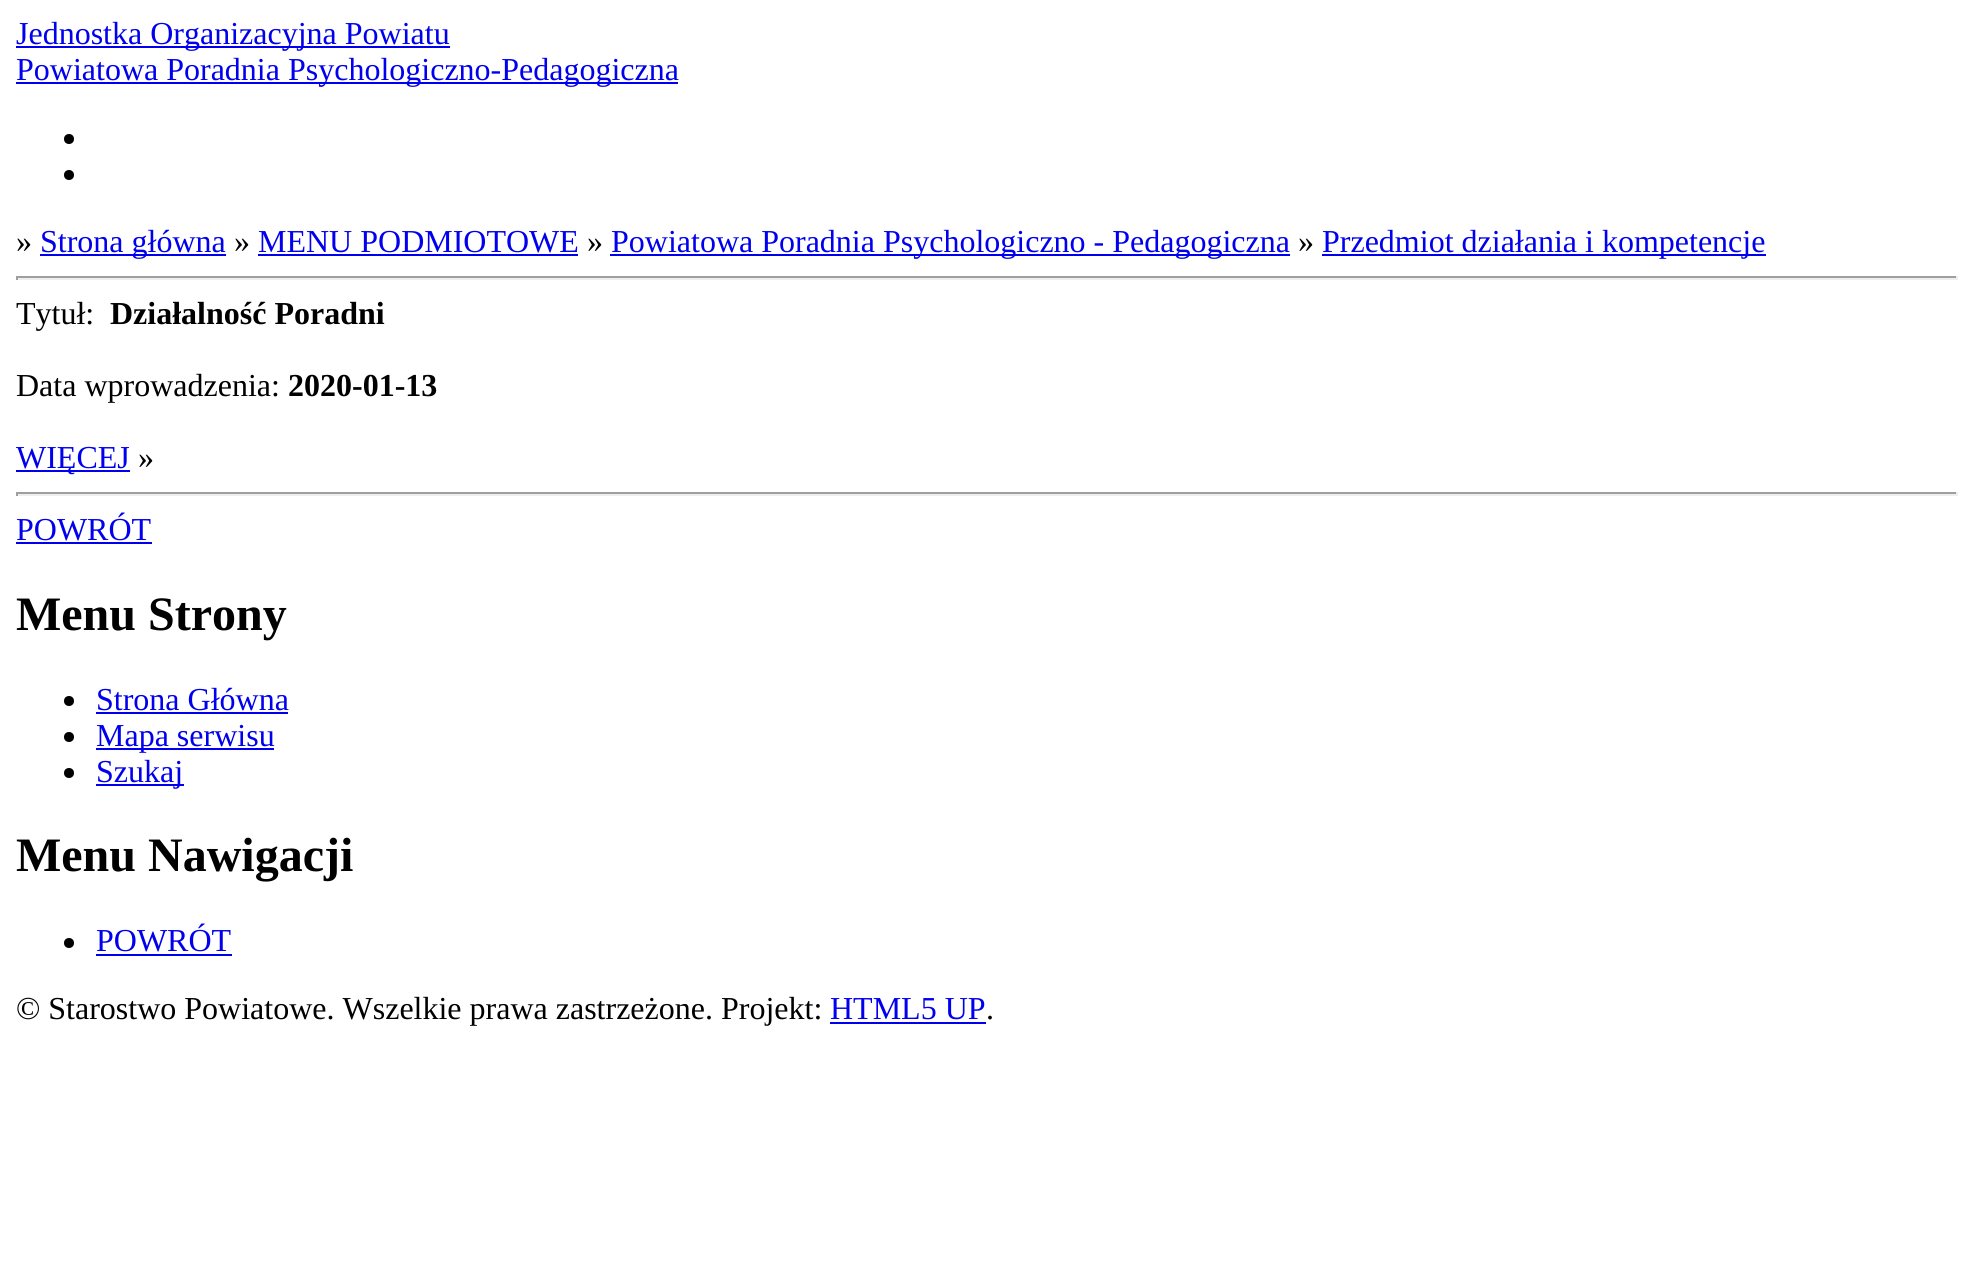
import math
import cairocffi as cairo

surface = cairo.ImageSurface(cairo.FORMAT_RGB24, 1974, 1285)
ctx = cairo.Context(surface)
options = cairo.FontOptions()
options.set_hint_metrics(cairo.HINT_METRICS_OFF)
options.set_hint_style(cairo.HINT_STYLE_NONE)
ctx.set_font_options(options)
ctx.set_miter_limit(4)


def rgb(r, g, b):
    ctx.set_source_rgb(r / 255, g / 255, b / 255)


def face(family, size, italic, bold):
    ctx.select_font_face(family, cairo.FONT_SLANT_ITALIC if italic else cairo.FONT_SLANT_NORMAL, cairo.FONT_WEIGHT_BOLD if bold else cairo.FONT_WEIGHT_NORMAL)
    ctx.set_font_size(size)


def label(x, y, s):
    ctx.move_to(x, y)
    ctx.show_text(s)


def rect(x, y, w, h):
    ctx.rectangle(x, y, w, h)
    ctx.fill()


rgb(255, 255, 255)
ctx.paint()
rgb(0, 0, 238)
rect(16, 46, 434, 2)
face('Liberation Serif', 32, 0, 0)
label(16, 44, 'Jednostka Organizacyjna Powiatu')
rect(16, 82, 662, 2)
label(16, 80, 'Powiatowa Poradnia Psychologiczno-Pedagogiczna')
rgb(0, 0, 0)
ctx.new_path()
ctx.arc(69, 139, 5, 0, 2 * math.pi)
ctx.fill()
ctx.arc(69, 175, 5, 0, 2 * math.pi)
ctx.fill()
label(16, 252, '»')
rgb(0, 0, 238)
rect(40, 254, 186, 2)
label(40, 252, 'Strona główna')
rgb(0, 0, 0)
label(234, 252, '»')
rgb(0, 0, 238)
label(258, 252, 'MENU PODMIOTOWE')
rect(258, 254, 320, 2)
rgb(0, 0, 0)
label(587, 252, '»')
rgb(0, 0, 238)
rect(610, 254, 680, 2)
label(611, 252, 'Powiatowa Poradnia Psychologiczno - Pedagogiczna')
rgb(0, 0, 0)
label(1298, 252, '»')
rgb(0, 0, 238)
rect(1322, 254, 444, 2)
label(1322, 252, 'Przedmiot działania i kompetencje')
rgb(159, 159, 159)
rect(16, 276, 1942, 2)
rgb(238, 238, 238)
rect(1956, 276, 2, 4)
rect(16, 278, 1942, 2)
rgb(159, 159, 159)
rect(16, 276, 2, 4)
rgb(0, 0, 0)
label(16, 324, 'Tytuł:')
face('Liberation Serif', 32, 0, 1)
label(110, 324, 'Działalność Poradni')
face('Liberation Serif', 32, 0, 0)
label(16, 396, 'Data wprowadzenia:')
face('Liberation Serif', 32, 0, 1)
label(288, 396, '2020-01-13')
rgb(0, 0, 238)
rect(16, 470, 114, 2)
face('Liberation Serif', 32, 0, 0)
label(16, 468, 'WIĘCEJ')
rgb(0, 0, 0)
label(138, 468, '»')
rgb(159, 159, 159)
rect(16, 492, 1942, 2)
rgb(238, 238, 238)
rect(1956, 492, 2, 4)
rect(16, 494, 1942, 2)
rgb(159, 159, 159)
rect(16, 492, 2, 4)
rgb(0, 0, 238)
label(16, 540, 'POWRÓT')
rect(16, 542, 136, 2)
face('Liberation Serif', 48, 0, 1)
rgb(0, 0, 0)
label(16, 630, 'Menu Strony')
ctx.new_path()
ctx.arc(69, 701, 5, 0, 2 * math.pi)
ctx.fill()
face('Liberation Serif', 32, 0, 0)
rgb(0, 0, 238)
label(96, 710, 'Strona Główna')
rect(96, 712, 192, 2)
rgb(0, 0, 0)
ctx.new_path()
ctx.arc(69, 737, 5, 0, 2 * math.pi)
ctx.fill()
rgb(0, 0, 238)
rect(96, 748, 178, 2)
label(96, 746, 'Mapa serwisu')
rgb(0, 0, 0)
ctx.new_path()
ctx.arc(69, 773, 5, 0, 2 * math.pi)
ctx.fill()
rgb(0, 0, 238)
rect(96, 784, 88, 2)
label(96, 782, 'Szukaj')
face('Liberation Serif', 48, 0, 1)
rgb(0, 0, 0)
label(16, 871, 'Menu Nawigacji')
ctx.new_path()
ctx.arc(69, 943, 5, 0, 2 * math.pi)
ctx.fill()
face('Liberation Serif', 32, 0, 0)
rgb(0, 0, 238)
label(96, 951, 'POWRÓT')
rect(96, 954, 136, 2)
rgb(0, 0, 0)
label(16, 1019, '© Starostwo Powiatowe. Wszelkie prawa zastrzeżone. Projekt:')
rgb(0, 0, 238)
label(830, 1019, 'HTML5 UP')
rect(830, 1022, 156, 2)
rgb(0, 0, 0)
label(986, 1019, '.')
surface.write_to_png('render.png')
